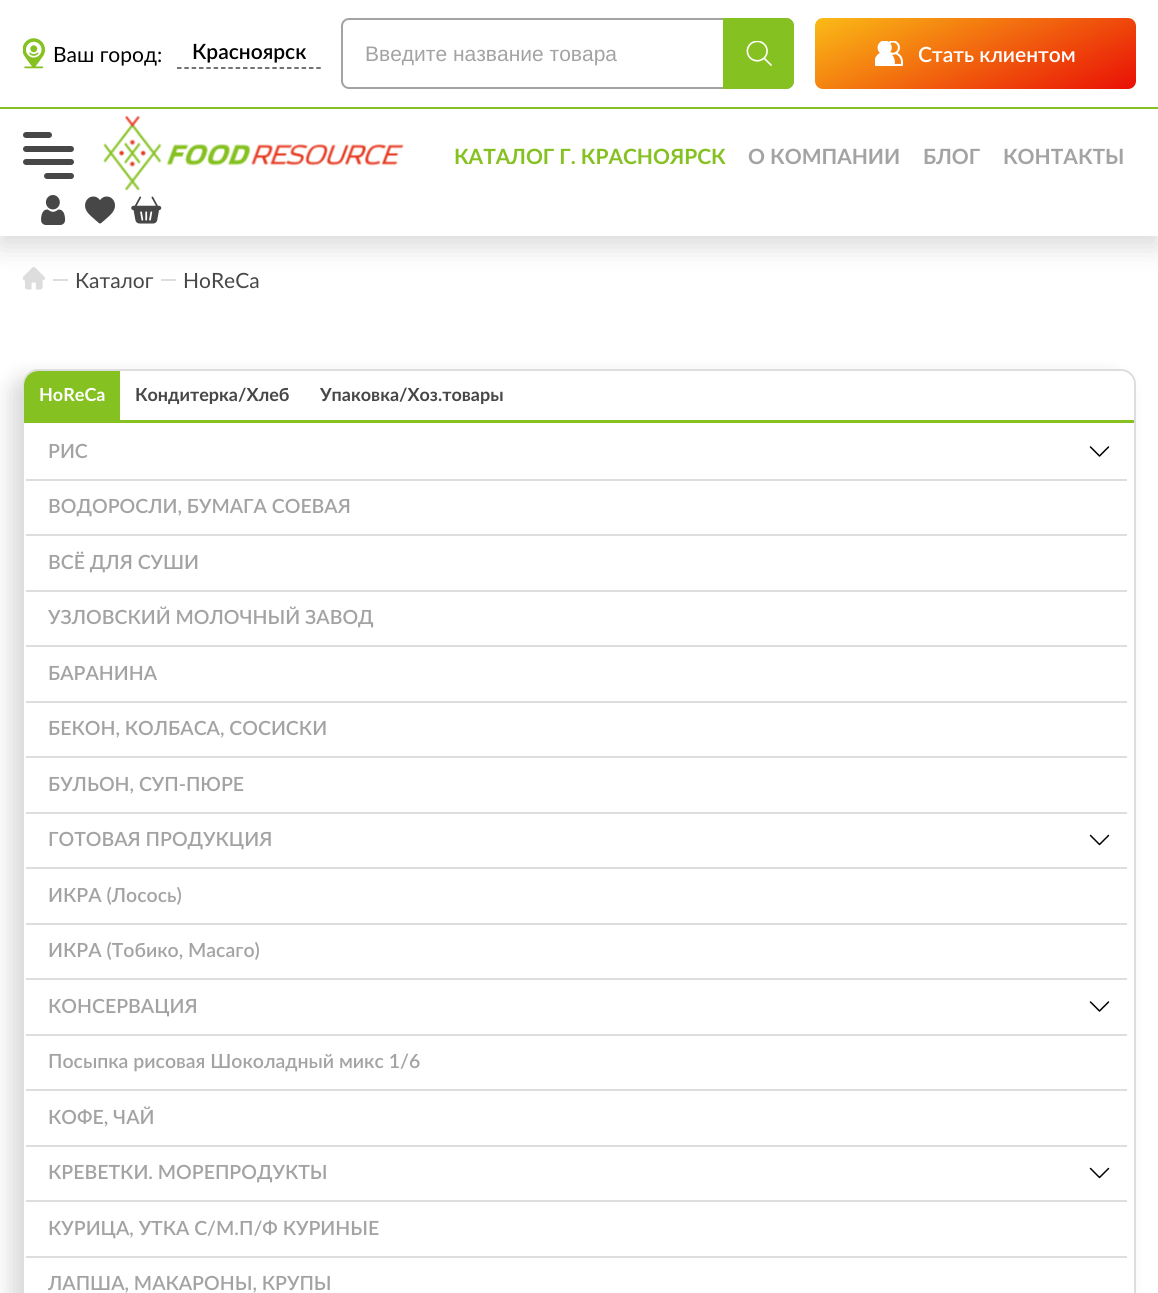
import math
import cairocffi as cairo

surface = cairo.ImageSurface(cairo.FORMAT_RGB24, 1158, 1293)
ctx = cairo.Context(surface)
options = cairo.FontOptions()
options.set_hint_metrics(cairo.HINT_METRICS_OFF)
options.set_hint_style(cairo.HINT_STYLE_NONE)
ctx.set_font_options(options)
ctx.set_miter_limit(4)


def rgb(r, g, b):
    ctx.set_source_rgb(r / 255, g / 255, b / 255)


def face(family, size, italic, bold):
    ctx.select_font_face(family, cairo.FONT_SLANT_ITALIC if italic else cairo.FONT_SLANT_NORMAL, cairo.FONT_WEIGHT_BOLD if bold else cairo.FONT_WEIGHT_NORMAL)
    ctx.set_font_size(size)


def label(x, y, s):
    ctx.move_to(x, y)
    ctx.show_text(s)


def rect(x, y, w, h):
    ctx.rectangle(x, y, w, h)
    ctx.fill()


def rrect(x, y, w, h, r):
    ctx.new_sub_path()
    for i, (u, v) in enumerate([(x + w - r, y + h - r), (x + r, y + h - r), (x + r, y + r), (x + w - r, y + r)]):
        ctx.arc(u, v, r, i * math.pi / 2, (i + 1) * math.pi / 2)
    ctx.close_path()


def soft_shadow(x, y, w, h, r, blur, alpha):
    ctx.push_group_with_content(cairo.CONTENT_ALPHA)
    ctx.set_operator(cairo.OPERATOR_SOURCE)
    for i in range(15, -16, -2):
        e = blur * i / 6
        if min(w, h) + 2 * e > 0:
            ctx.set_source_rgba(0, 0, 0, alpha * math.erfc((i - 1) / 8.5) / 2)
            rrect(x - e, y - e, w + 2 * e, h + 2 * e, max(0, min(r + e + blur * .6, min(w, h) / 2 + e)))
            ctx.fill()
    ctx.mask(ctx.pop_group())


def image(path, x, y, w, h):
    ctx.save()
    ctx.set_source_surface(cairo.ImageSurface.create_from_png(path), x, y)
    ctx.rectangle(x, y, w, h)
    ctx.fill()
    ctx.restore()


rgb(255, 255, 255)
ctx.paint()
image('image7.png', 23, 267, 22, 23)
rgb(221, 221, 221)
rect(53, 279, 15, 2)
rect(161, 279, 15, 2)
rgb(0, 0, 0)
soft_shadow(0, 11, 1158, 235, 0, 13.5, 0.15)
rgb(255, 255, 255)
rect(0, 0, 1158, 236)
rgb(133, 193, 33)
rect(0, 107, 1158, 2)
image('image0.png', 23, 38, 22, 31)
face('Lato', 21, 0, 0)
rgb(0, 0, 0)
label(53, 62, 'Ваш город:')
ctx.new_path()
ctx.move_to(177, 68)
ctx.line_to(321, 68)
rgb(71, 71, 71)
ctx.set_line_width(1.5)
ctx.set_dash([4.5, 2.83])
ctx.stroke()
face('Lato SemiBold', 21, 0, 0)
rgb(0, 0, 0)
label(192, 59, 'Красноярск')
rrect(342, 19, 451, 69, 7)
rgb(163, 163, 163)
ctx.set_line_width(2)
ctx.set_dash([])
ctx.stroke()
face('Liberation Sans', 21, 0, 0)
label(365, 61, 'Введите название товара')
rgb(133, 193, 33)
ctx.new_path()
ctx.move_to(723, 18)
ctx.line_to(786, 18)
ctx.curve_to(790.5, 18, 794, 21.5, 794, 26)
ctx.line_to(794, 81)
ctx.curve_to(794, 85.5, 790.5, 89, 786, 89)
ctx.line_to(723, 89)
ctx.close_path()
ctx.fill()
image('image1.png', 746, 41, 26, 25)
gradient = cairo.LinearGradient(919, -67, 1022, 155)
gradient.add_color_stop_rgba(0, 0.992, 0.847, 0.098, 1)
gradient.add_color_stop_rgba(1, 0.91, 0.02, 0.02, 1)
ctx.set_source(gradient)
rrect(815, 18, 321, 71, 8)
ctx.fill()
image('image2.png', 875, 41, 28, 25)
face('Lato SemiBold', 21, 0, 0)
rgb(255, 255, 255)
label(918, 62, 'Стать клиентом')
rgb(71, 71, 71)
rrect(23, 132, 29, 6, 3)
ctx.fill()
rrect(23, 146, 51, 6, 3)
ctx.fill()
rrect(23, 159, 51, 6, 3)
ctx.fill()
rrect(44, 173, 30, 6, 3)
ctx.fill()
image('image3.png', 103, 116, 301, 75)
face('Lato', 21, 0, 1)
rgb(133, 193, 33)
label(454, 164, 'КАТАЛОГ Г. КРАСНОЯРСК')
rgb(163, 163, 163)
label(748, 164, 'О КОМПАНИИ')
label(923, 164, 'БЛОГ')
label(1003, 164, 'КОНТАКТЫ')
image('image4.png', 41, 195, 25, 30)
image('image5.png', 85, 196, 30, 28)
image('image6.png', 131, 196, 31, 28)
face('Lato', 21, 0, 0)
rgb(71, 71, 71)
label(75, 288, 'Каталог')
label(183, 288, 'HoReCa')
rgb(0, 0, 0)
soft_shadow(11, 378, 1113, 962, 15, 10.5, 0.15)
rrect(24, 370, 1111, 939, 14)
rgb(221, 221, 221)
ctx.stroke()
rgb(255, 255, 255)
ctx.new_path()
ctx.move_to(38, 371)
ctx.line_to(1120, 371)
ctx.curve_to(1127.5, 371, 1134, 377.5, 1134, 385)
ctx.line_to(1134, 423)
ctx.line_to(24, 423)
ctx.line_to(24, 385)
ctx.curve_to(24, 377.5, 30.5, 371, 38, 371)
ctx.close_path()
ctx.fill()
rgb(133, 193, 33)
rect(24, 420, 1110, 3)
ctx.new_path()
ctx.move_to(38, 371)
ctx.line_to(120, 371)
ctx.line_to(120, 420)
ctx.line_to(24, 420)
ctx.line_to(24, 385)
ctx.curve_to(24, 377.5, 30.5, 371, 38, 371)
ctx.close_path()
ctx.fill()
face('Lato', 18, 0, 1)
rgb(255, 255, 255)
label(39, 401, 'HoReCa')
rgb(71, 71, 71)
label(135, 401, 'Кондитерка/Хлеб')
label(320, 401, 'Упаковка/Хоз.товары')
rgb(255, 255, 255)
rect(24, 423, 1110, 870)
rgb(221, 221, 221)
rect(26, 479, 1101, 2)
face('Lato SemiBold', 19.5, 0, 0)
rgb(163, 163, 163)
label(48, 458, 'РИС')
image('image8.png', 1089, 446, 21, 11)
rgb(221, 221, 221)
rect(26, 534, 1101, 2)
rgb(163, 163, 163)
label(48, 513, 'ВОДОРОСЛИ, БУМАГА СОЕВАЯ')
rgb(221, 221, 221)
rect(26, 590, 1101, 2)
rgb(163, 163, 163)
label(48, 569, 'ВСЁ ДЛЯ СУШИ')
rgb(221, 221, 221)
rect(26, 645, 1101, 2)
rgb(163, 163, 163)
label(48, 624, 'УЗЛОВСКИЙ МОЛОЧНЫЙ ЗАВОД')
rgb(221, 221, 221)
rect(26, 701, 1101, 2)
rgb(163, 163, 163)
label(48, 680, 'БАРАНИНА')
rgb(221, 221, 221)
rect(26, 756, 1101, 2)
rgb(163, 163, 163)
label(48, 735, 'БЕКОН, КОЛБАСА, СОСИСКИ')
rgb(221, 221, 221)
rect(26, 812, 1101, 2)
rgb(163, 163, 163)
label(48, 791, 'БУЛЬОН, СУП-ПЮРЕ')
rgb(221, 221, 221)
rect(26, 867, 1101, 2)
rgb(163, 163, 163)
label(48, 846, 'ГОТОВАЯ ПРОДУКЦИЯ')
image('image9.png', 1089, 834, 21, 12)
rgb(221, 221, 221)
rect(26, 923, 1101, 2)
rgb(163, 163, 163)
label(48, 902, 'ИКРА (Лосось)')
rgb(221, 221, 221)
rect(26, 978, 1101, 2)
rgb(163, 163, 163)
label(48, 957, 'ИКРА (Тобико, Масаго)')
rgb(221, 221, 221)
rect(26, 1034, 1101, 2)
rgb(163, 163, 163)
label(48, 1013, 'КОНСЕРВАЦИЯ')
image('image8.png', 1089, 1001, 21, 11)
rgb(221, 221, 221)
rect(26, 1089, 1101, 2)
rgb(163, 163, 163)
label(48, 1068, 'Посыпка рисовая Шоколадный микс 1/6')
rgb(221, 221, 221)
rect(26, 1145, 1101, 2)
rgb(163, 163, 163)
label(48, 1124, 'КОФЕ, ЧАЙ')
rgb(221, 221, 221)
rect(26, 1200, 1101, 2)
rgb(163, 163, 163)
label(48, 1179, 'КРЕВЕТКИ. МОРЕПРОДУКТЫ')
image('image9.png', 1089, 1167, 21, 12)
rgb(221, 221, 221)
rect(26, 1256, 1101, 2)
rgb(163, 163, 163)
label(48, 1235, 'КУРИЦА, УТКА С/М.П/Ф КУРИНЫЕ')
label(48, 1290, 'ЛАПША, МАКАРОНЫ, КРУПЫ')
surface.write_to_png('render.png')
